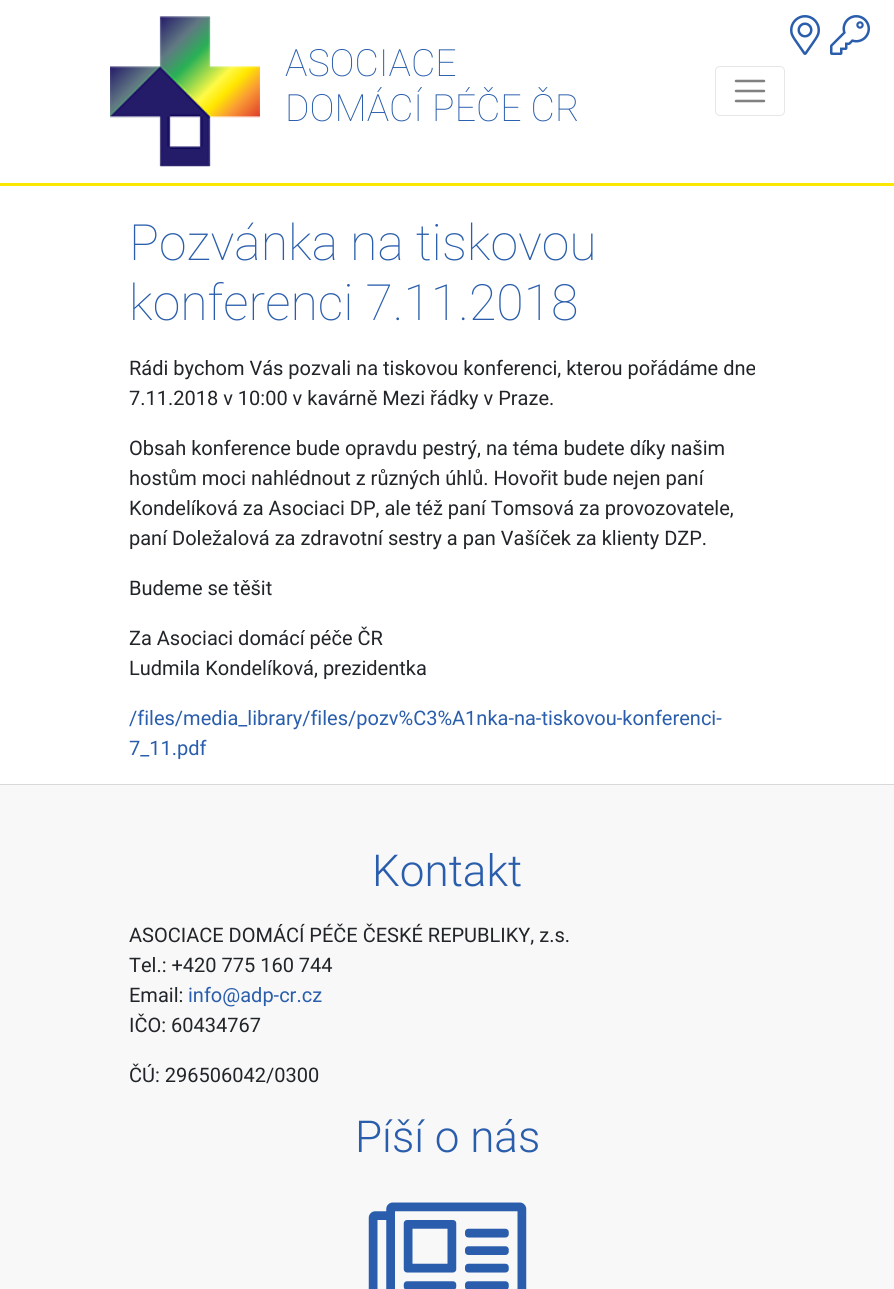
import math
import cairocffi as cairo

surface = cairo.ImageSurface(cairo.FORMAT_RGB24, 894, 1289)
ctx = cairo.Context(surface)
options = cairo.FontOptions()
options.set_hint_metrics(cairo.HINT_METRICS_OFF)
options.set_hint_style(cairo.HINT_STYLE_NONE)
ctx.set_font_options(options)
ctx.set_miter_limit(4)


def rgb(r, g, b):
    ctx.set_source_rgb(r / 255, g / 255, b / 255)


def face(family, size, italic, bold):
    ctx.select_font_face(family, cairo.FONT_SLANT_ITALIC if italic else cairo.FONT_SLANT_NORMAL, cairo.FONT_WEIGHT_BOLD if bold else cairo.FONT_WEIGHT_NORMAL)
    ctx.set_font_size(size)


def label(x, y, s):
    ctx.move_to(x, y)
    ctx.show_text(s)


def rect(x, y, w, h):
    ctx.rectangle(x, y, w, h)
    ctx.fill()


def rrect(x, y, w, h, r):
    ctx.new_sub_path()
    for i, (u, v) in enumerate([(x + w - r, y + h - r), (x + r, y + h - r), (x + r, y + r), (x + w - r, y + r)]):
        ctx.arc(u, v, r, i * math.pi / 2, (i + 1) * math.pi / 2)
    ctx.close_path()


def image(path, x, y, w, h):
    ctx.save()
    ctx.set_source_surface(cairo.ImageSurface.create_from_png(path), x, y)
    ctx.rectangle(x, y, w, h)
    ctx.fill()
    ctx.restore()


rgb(255, 255, 255)
ctx.paint()
rgb(249, 231, 2)
rect(0, 183, 894, 3)
image('image0.png', 790, 15, 30, 40)
image('image1.png', 830, 15, 40, 40)
image('image2.png', 110, 16, 150, 151)
face('Roboto Thin', 37.5, 0, 0)
rgb(42, 94, 172)
label(285, 76, 'ASOCIACE')
label(285, 121, 'DOMÁCÍ PÉČE ČR')
rrect(715.5, 66.5, 69, 49, 4.5)
rgb(230, 230, 230)
ctx.set_line_width(1)
ctx.stroke()
ctx.new_path()
ctx.move_to(736, 81)
ctx.line_to(764, 81)
ctx.move_to(736, 91)
ctx.line_to(764, 91)
ctx.move_to(736, 101)
ctx.line_to(764, 101)
rgb(128, 128, 128)
ctx.set_line_width(2.5)
ctx.set_line_cap(cairo.LINE_CAP_ROUND)
ctx.stroke()
face('Roboto Thin', 50, 0, 0)
rgb(42, 94, 172)
label(129, 260, 'Pozvánka na tiskovou')
label(129, 320, 'konferenci 7.11.2018')
face('Roboto', 20, 0, 0)
rgb(33, 37, 41)
label(129, 375, 'Rádi bychom Vás pozvali na tiskovou konferenci, kterou pořádáme dne')
label(129, 405, '7.11.2018 v 10:00 v kavárně Mezi řádky v Praze.')
label(129, 455, 'Obsah konference bude opravdu pestrý, na téma budete díky našim')
label(129, 485, 'hostům moci nahlédnout z různých úhlů. Hovořit bude nejen paní')
label(129, 515, 'Kondelíková za Asociaci DP, ale též paní Tomsová za provozovatele,')
label(129, 545, 'paní Doležalová za zdravotní sestry a pan Vašíček za klienty DZP.')
label(129, 595, 'Budeme se těšit')
label(129, 645, 'Za Asociaci domácí péče ČR')
label(129, 675, 'Ludmila Kondelíková, prezidentka')
rgb(42, 94, 172)
label(129, 725, '/files/media_library/files/pozv%C3%A1nka-na-tiskovou-konferenci-')
label(129, 755, '7_11.pdf')
rgb(248, 248, 248)
rect(0, 785, 894, 504)
rgb(217, 217, 217)
rect(0, 784, 894, 1)
face('Roboto Light', 44, 0, 0)
rgb(42, 94, 172)
label(372, 886, 'Kontakt')
face('Roboto', 20, 0, 0)
rgb(33, 37, 41)
label(129, 942, 'ASOCIACE DOMÁCÍ PÉČE ČESKÉ REPUBLIKY, z.s.')
label(129, 972, 'Tel.: +420 775 160 744')
label(129, 1002, 'Email:')
rgb(42, 94, 172)
label(188, 1002, 'info@adp-cr.cz')
rgb(33, 37, 41)
label(129, 1032, 'IČO: 60434767')
label(129, 1082, 'ČÚ: 296506042/0300')
face('Roboto Light', 44, 0, 0)
rgb(42, 94, 172)
label(355, 1152, 'Píší o nás')
image('image3.png', 368, 1202, 159, 87)
surface.write_to_png('render.png')
